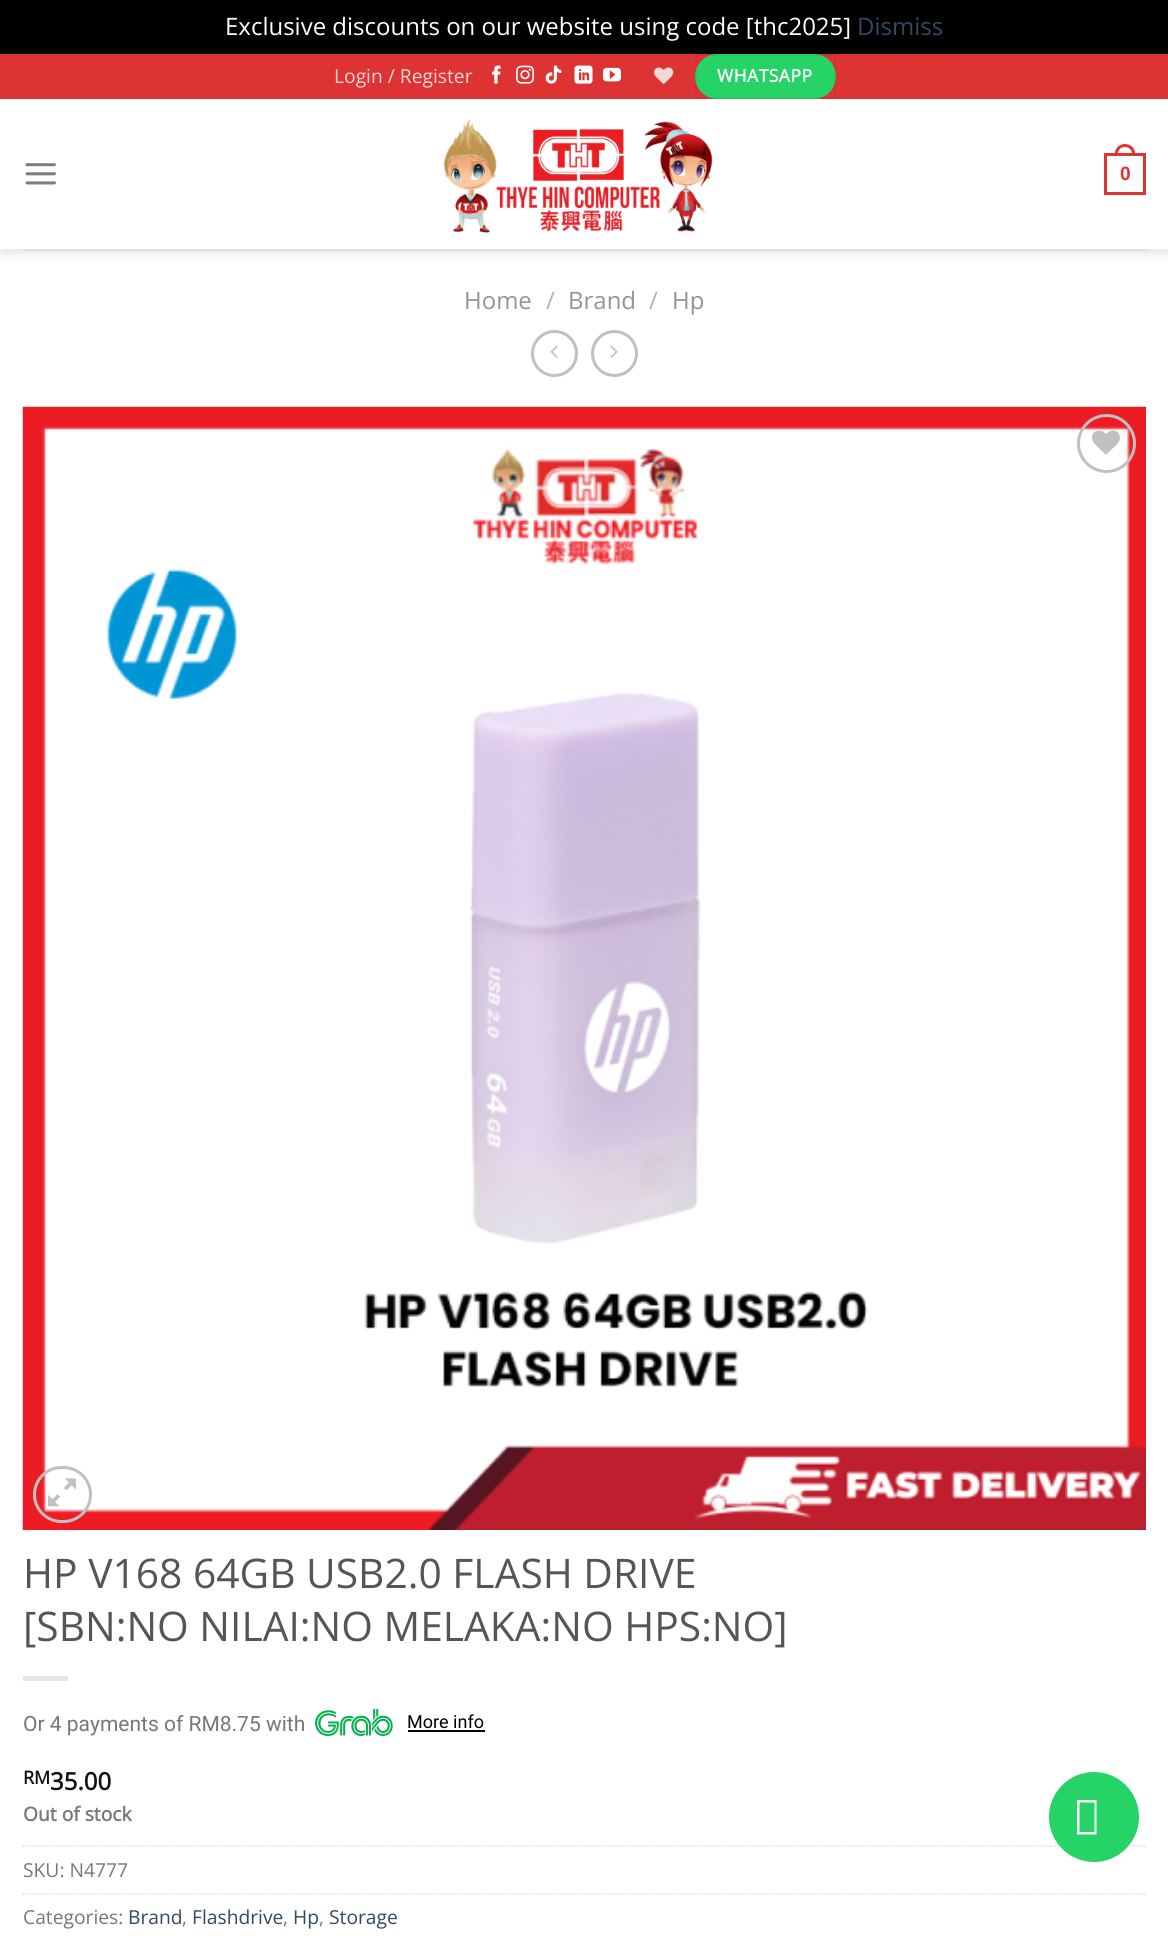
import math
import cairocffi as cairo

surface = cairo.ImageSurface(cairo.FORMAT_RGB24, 1168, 1951)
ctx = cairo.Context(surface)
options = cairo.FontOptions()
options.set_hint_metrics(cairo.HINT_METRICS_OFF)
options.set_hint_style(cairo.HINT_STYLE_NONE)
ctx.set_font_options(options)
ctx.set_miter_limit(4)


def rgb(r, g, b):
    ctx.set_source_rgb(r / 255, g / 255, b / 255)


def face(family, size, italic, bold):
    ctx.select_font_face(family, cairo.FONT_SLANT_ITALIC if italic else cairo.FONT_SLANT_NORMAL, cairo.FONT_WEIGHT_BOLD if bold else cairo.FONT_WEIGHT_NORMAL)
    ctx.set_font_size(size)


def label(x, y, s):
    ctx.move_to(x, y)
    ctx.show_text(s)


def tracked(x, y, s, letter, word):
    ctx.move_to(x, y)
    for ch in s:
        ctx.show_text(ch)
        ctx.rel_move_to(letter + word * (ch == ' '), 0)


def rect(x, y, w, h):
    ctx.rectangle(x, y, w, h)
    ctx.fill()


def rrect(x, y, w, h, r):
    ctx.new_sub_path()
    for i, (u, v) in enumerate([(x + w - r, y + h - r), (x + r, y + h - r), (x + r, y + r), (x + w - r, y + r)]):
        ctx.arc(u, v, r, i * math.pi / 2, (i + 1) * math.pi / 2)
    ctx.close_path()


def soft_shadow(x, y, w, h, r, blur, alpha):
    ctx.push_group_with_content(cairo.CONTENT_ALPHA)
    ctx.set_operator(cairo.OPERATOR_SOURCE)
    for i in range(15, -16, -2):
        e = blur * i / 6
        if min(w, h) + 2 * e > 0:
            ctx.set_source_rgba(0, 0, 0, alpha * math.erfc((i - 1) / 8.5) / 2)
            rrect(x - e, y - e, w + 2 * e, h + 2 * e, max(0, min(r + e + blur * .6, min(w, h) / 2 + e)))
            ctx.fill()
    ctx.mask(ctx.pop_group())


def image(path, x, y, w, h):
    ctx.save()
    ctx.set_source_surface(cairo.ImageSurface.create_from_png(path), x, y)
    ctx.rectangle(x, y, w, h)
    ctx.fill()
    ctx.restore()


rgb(0, 0, 0)
ctx.paint()
face('Open Sans', 24, 0, 0)
rgb(255, 255, 255)
label(225, 35, 'Exclusive discounts on our website using code [thc2025]')
rgb(51, 72, 98)
label(857, 35, 'Dismiss')
rgb(255, 255, 255)
rect(0, 99, 1168, 1852)
ctx.save()
ctx.set_fill_rule(cairo.FILL_RULE_EVEN_ODD)
ctx.new_path()
ctx.move_to(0, 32)
ctx.line_to(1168, 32)
ctx.line_to(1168, 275)
ctx.line_to(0, 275)
ctx.close_path()
ctx.move_to(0, 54)
ctx.line_to(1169, 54)
ctx.line_to(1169, 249)
ctx.line_to(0, 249)
ctx.close_path()
ctx.clip()
rgb(0, 0, 0)
soft_shadow(2, 56, 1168, 195, 0, 7.5, 0.15)
ctx.restore()
rgb(221, 51, 51)
rect(0, 54, 1168, 45)
face('Open Sans', 19.25, 0, 0)
rgb(248, 214, 214)
label(334, 83, 'Login / Register')
image('image0.png', 492, 65, 9, 19)
image('image1.png', 516, 65, 18, 19)
image('image2.png', 545, 65, 17, 19)
image('image3.png', 574, 65, 19, 19)
image('image4.png', 603, 67, 18, 15)
image('image5.png', 654, 67, 20, 17)
rgb(37, 211, 102)
rrect(695, 54, 141, 45, 22.5)
ctx.fill()
ctx.rectangle(696, 55, 139, 43)
ctx.set_source_rgba(0, 0, 0, 0.05)
ctx.stroke()
face('Open Sans', 17.5, 0, 1)
rgb(255, 255, 255)
tracked(717, 82, 'WHATSAPP', 0.5, 0)
image('image6.png', 25, 163, 31, 22)
image('image7.png', 443, 118, 270, 115)
ctx.rectangle(1105.5, 154.5, 39, 39)
rgb(221, 51, 51)
ctx.set_line_width(3)
ctx.stroke()
ctx.set_fill_rule(cairo.FILL_RULE_EVEN_ODD)
ctx.new_path()
ctx.move_to(1125, 144)
ctx.curve_to(1132, 144, 1135.5, 149.5, 1135.5, 156)
ctx.line_to(1114.5, 156)
ctx.curve_to(1114.5, 149.5, 1118, 144, 1125, 144)
ctx.close_path()
ctx.move_to(1125, 147)
ctx.curve_to(1130.5, 147, 1132.5, 151.5, 1132.5, 156)
ctx.line_to(1117.5, 156)
ctx.curve_to(1117.5, 151.5, 1119.5, 147, 1125, 147)
ctx.close_path()
ctx.fill()
face('Liberation Sans', 19.25, 0, 1)
label(1120, 180, '0')
rgb(222, 222, 222)
rect(23, 249, 1123, 2)
face('Open Sans', 24, 0, 0)
rgb(148, 148, 148)
label(464, 309, 'Home')
rgb(178, 178, 178)
label(546, 309, '/')
rgb(148, 148, 148)
label(568, 309, 'Brand')
rgb(178, 178, 178)
label(649, 309, '/')
rgb(148, 148, 148)
label(672, 309, 'Hp')
ctx.new_path()
ctx.arc(554.5, 353.5, 22, 0, 2 * math.pi)
rgb(192, 192, 192)
ctx.stroke()
image('image8.png', 550, 345, 8, 13)
ctx.arc(614.5, 353.5, 22, 0, 2 * math.pi)
ctx.stroke()
image('image9.png', 610, 345, 8, 13)
image('image10.png', 22, 406, 1124, 1124)
ctx.arc(1106.5, 443.5, 28, 0, 2 * math.pi)
ctx.stroke()
image('image11.png', 1092, 430, 28, 25)
rrect(34.5, 1467.5, 56, 54, 27)
ctx.stroke()
image('image12.png', 48, 1478, 28, 29)
face('Open Sans', 40.75, 0, 0)
rgb(85, 85, 85)
label(23, 1588, 'HP V168 64GB USB2.0 FLASH DRIVE')
label(23, 1641, '[SBN:NO NILAI:NO MELAKA:NO HPS:NO]')
rgb(230, 230, 230)
rect(23, 1676, 45, 5)
face('Roboto', 21, 0, 0)
rgb(119, 119, 119)
label(23, 1731, 'Or 4 payments of RM8.75 with')
image('image13.png', 315, 1709, 78, 27)
face('Roboto', 18, 0, 0)
rgb(0, 0, 0)
label(407, 1728, 'More info')
rect(408, 1730, 77, 2)
face('Open Sans', 18, 0, 1)
rgb(17, 17, 17)
label(23, 1784, 'RM')
face('Open Sans', 24, 0, 1)
label(50, 1790, '35.00')
face('Open Sans', 19.25, 0, 1)
rgb(119, 119, 119)
label(23, 1821, 'Out of stock')
ctx.new_path()
ctx.move_to(22.5, 1846)
ctx.line_to(1146, 1846)
rgb(221, 221, 221)
ctx.set_line_width(1.5)
ctx.set_dash([1.5, 1.5])
ctx.stroke()
face('Open Sans', 19.25, 0, 0)
rgb(119, 119, 119)
label(23, 1877, 'SKU: N4777')
ctx.new_path()
ctx.move_to(22.5, 1894)
ctx.line_to(1146, 1894)
rgb(221, 221, 221)
ctx.stroke()
rgb(119, 119, 119)
label(23, 1924, 'Categories:')
rgb(51, 72, 98)
label(128, 1924, 'Brand')
rgb(119, 119, 119)
label(182, 1924, ',')
rgb(51, 72, 98)
label(192, 1924, 'Flashdrive')
rgb(119, 119, 119)
label(283, 1924, ',')
rgb(51, 72, 98)
label(293, 1924, 'Hp')
rgb(119, 119, 119)
label(319, 1924, ',')
rgb(51, 72, 98)
label(329, 1924, 'Storage')
rgb(37, 211, 102)
ctx.new_path()
ctx.arc(1094, 1817, 45, 0, 2 * math.pi)
ctx.fill()
rgb(255, 255, 255)
ctx.set_fill_rule(cairo.FILL_RULE_WINDING)
ctx.new_path()
ctx.move_to(1077, 1834.5)
ctx.line_to(1077, 1800)
ctx.line_to(1096.5, 1800)
ctx.line_to(1096.5, 1834.5)
ctx.close_path()
ctx.move_to(1079.5, 1832)
ctx.line_to(1094.5, 1832)
ctx.line_to(1094.5, 1802.5)
ctx.line_to(1079.5, 1802.5)
ctx.close_path()
ctx.fill()
surface.write_to_png('render.png')
